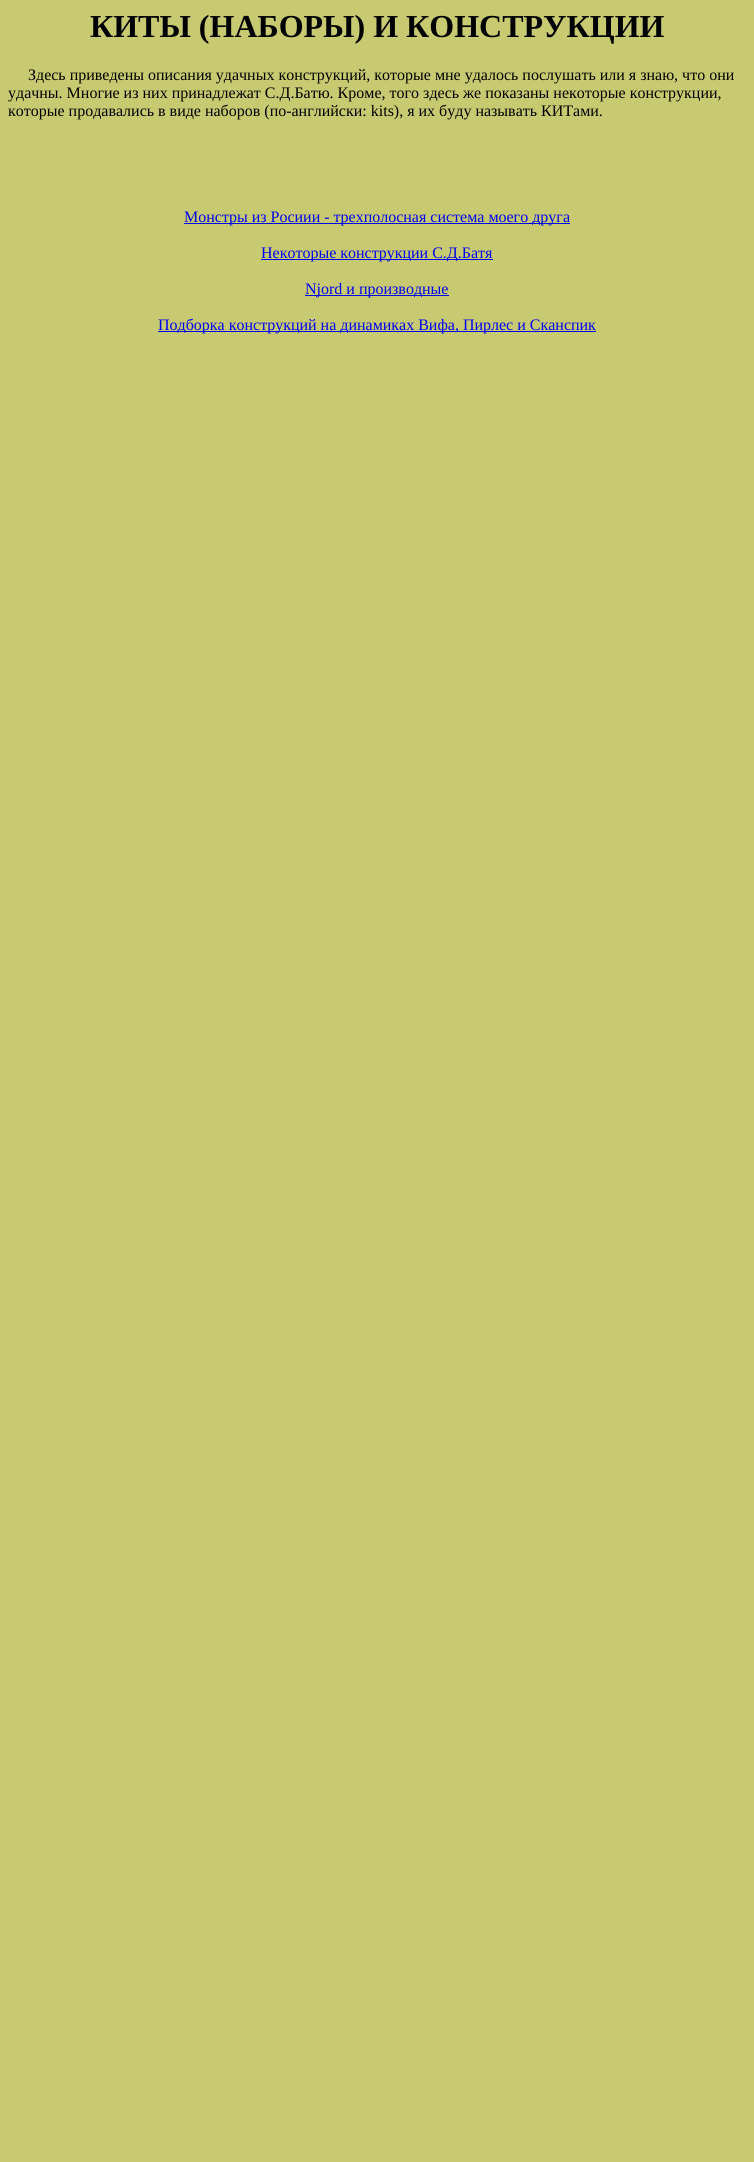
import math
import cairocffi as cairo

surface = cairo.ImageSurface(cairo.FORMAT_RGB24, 754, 2162)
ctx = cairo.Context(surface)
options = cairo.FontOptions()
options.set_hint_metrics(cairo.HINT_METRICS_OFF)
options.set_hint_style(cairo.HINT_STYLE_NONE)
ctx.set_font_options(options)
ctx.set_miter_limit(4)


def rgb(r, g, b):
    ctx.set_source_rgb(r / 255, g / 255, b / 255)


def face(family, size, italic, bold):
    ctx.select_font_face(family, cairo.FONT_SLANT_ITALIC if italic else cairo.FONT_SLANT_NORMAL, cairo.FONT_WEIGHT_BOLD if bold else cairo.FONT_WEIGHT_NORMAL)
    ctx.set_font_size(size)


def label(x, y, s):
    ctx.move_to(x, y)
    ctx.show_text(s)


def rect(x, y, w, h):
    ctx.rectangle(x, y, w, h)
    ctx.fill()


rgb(200, 202, 113)
ctx.paint()
face('Liberation Serif', 32, 0, 1)
rgb(0, 0, 0)
label(90, 37, 'КИТЫ (НАБОРЫ) И КОНСТРУКЦИИ')
face('Liberation Serif', 16, 0, 0)
label(28, 80, 'Здесь приведены описания удачных конструкций, которые мне удалось послушать или я знаю, что они')
label(8, 98, 'удачны. Многие из них принадлежат С.Д.Батю. Кроме, того здесь же показаны некоторые конструкции,')
label(8, 116, 'которые продавались в виде наборов (по-английски: kits), я их буду называть КИТами.')
rgb(0, 0, 238)
rect(184, 223, 386, 1)
label(184, 222, 'Монстры из Росиии - трехполосная система моего друга')
rect(261, 259, 232, 1)
label(261, 258, 'Некоторые конструкции С.Д.Батя')
rect(305, 295, 144, 1)
label(305, 294, 'Njord и производные')
rect(158, 331, 438, 1)
label(158, 330, 'Подборка конструкций на динамиках Вифа, Пирлес и Сканспик')
surface.write_to_png('render.png')
